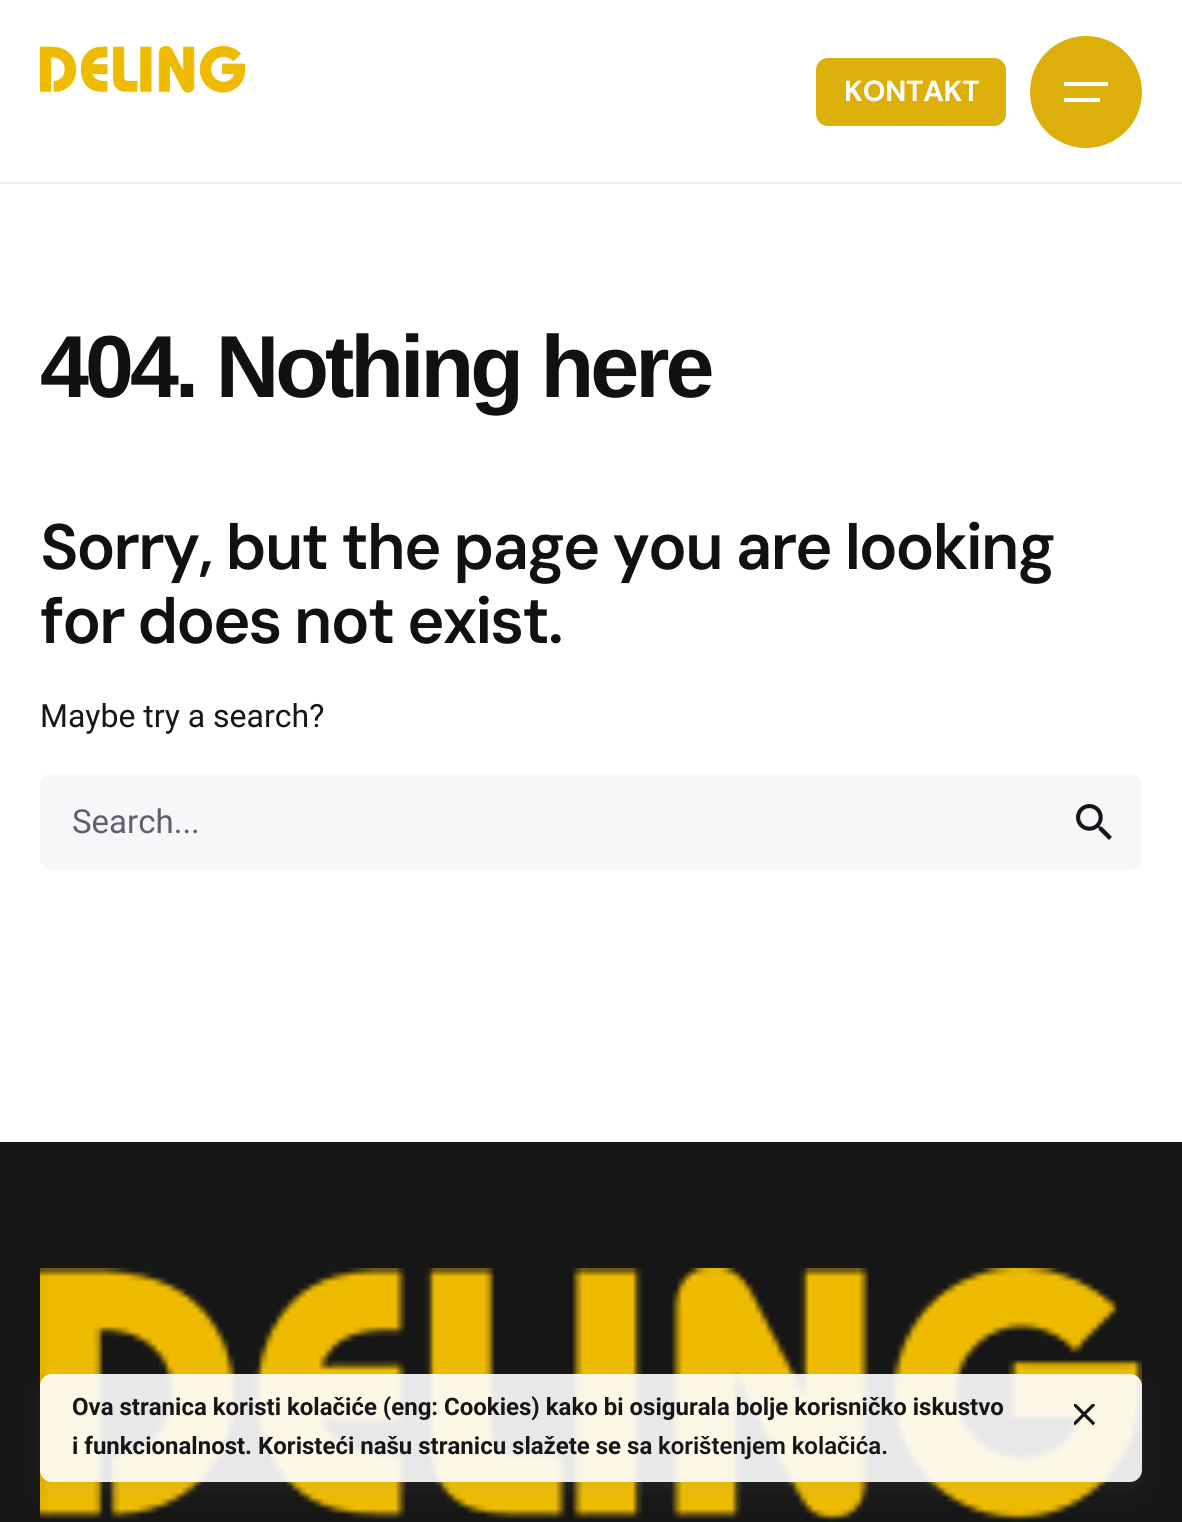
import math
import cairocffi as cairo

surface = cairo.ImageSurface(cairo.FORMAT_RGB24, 1182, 1522)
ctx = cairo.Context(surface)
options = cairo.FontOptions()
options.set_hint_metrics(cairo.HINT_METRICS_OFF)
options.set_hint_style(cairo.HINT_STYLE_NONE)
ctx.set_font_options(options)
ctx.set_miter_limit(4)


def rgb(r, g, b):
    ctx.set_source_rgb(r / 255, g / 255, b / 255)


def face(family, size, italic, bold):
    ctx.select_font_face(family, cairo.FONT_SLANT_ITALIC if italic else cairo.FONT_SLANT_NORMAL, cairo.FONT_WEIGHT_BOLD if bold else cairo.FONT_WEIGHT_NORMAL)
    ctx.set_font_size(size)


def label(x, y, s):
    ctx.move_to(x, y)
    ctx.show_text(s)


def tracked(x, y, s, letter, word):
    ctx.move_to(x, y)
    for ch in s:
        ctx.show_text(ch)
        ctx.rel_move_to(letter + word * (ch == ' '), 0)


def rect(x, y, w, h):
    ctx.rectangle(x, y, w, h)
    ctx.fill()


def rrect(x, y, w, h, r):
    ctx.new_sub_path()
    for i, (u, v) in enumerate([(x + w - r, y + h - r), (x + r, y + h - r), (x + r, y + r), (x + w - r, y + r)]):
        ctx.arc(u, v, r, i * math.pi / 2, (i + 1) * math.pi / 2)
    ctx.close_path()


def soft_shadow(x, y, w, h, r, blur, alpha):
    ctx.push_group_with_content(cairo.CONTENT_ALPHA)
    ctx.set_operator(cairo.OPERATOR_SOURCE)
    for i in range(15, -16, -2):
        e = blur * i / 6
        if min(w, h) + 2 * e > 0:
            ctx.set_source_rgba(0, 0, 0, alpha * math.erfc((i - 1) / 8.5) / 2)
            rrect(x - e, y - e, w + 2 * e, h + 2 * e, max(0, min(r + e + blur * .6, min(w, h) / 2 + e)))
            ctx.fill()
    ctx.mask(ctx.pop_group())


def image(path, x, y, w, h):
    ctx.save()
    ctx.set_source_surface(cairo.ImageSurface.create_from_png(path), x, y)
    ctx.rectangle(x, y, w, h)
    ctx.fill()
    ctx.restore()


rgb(255, 255, 255)
ctx.paint()
rgb(239, 238, 241)
rect(0, 182, 1182, 2)
image('image0.png', 40, 46, 206, 47)
rgb(220, 175, 11)
rrect(816, 58, 190, 68, 12)
ctx.fill()
face('DM Sans', 29, 0, 1)
rgb(255, 255, 255)
tracked(844, 101, 'KONTAKT', -0.25, 0)
rgb(220, 175, 11)
ctx.new_path()
ctx.arc(1086, 92, 56, 0, 2 * math.pi)
ctx.fill()
rgb(255, 255, 255)
rect(1064, 82, 44, 4)
rect(1064, 98, 36, 4)
face('Liberation Sans', 88, 0, 1)
rgb(17, 16, 19)
tracked(40, 397, '404. Nothing here', -4, 0)
face('DM Sans SemiBold', 64, 0, 0)
tracked(40, 569, 'Sorry, but the page you are looking', -2.25, 0.25)
tracked(40, 643, 'for does not exist.', -2.25, 0)
face('Roboto', 32, 0, 0)
rgb(22, 21, 25)
label(40, 727, 'Maybe try a search?')
rgb(247, 246, 248)
rrect(40, 774, 1102, 96, 12)
ctx.fill()
face('Roboto', 33, 0, 0)
rgb(99, 93, 111)
label(72, 833, 'Search...')
image('image1.png', 1076, 804, 36, 36)
rgb(22, 22, 22)
rect(0, 1142, 1182, 380)
image('image2.png', 40, 1268, 1102, 254)
ctx.save()
ctx.set_fill_rule(cairo.FILL_RULE_EVEN_ODD)
ctx.new_path()
ctx.move_to(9, 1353)
ctx.line_to(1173, 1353)
ctx.line_to(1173, 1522)
ctx.line_to(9, 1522)
ctx.close_path()
ctx.move_to(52, 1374)
ctx.line_to(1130, 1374)
ctx.curve_to(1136.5, 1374, 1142, 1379.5, 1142, 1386)
ctx.line_to(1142, 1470)
ctx.curve_to(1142, 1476.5, 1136.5, 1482, 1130, 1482)
ctx.line_to(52, 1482)
ctx.curve_to(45.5, 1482, 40, 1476.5, 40, 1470)
ctx.line_to(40, 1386)
ctx.curve_to(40, 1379.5, 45.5, 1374, 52, 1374)
ctx.close_path()
ctx.clip()
rgb(150, 144, 162)
soft_shadow(40, 1384, 1102, 108, 12, 10, 0.1)
ctx.restore()
ctx.set_source_rgba(1, 1, 1, 0.9)
rrect(40, 1374, 1102, 108, 12)
ctx.fill()
face('Roboto', 24, 0, 1)
rgb(22, 21, 25)
label(72, 1415, 'Ova stranica koristi kolačiće (eng: Cookies) kako bi osigurala bolje korisničko iskustvo')
label(72, 1454, 'i funkcionalnost. Koristeći našu stranicu slažete se sa')
face('Roboto SemiBold', 24, 0, 0)
label(658, 1454, 'korištenjem kolačića.')
image('image3.png', 1074, 1404, 22, 22)
surface.write_to_png('render.png')
